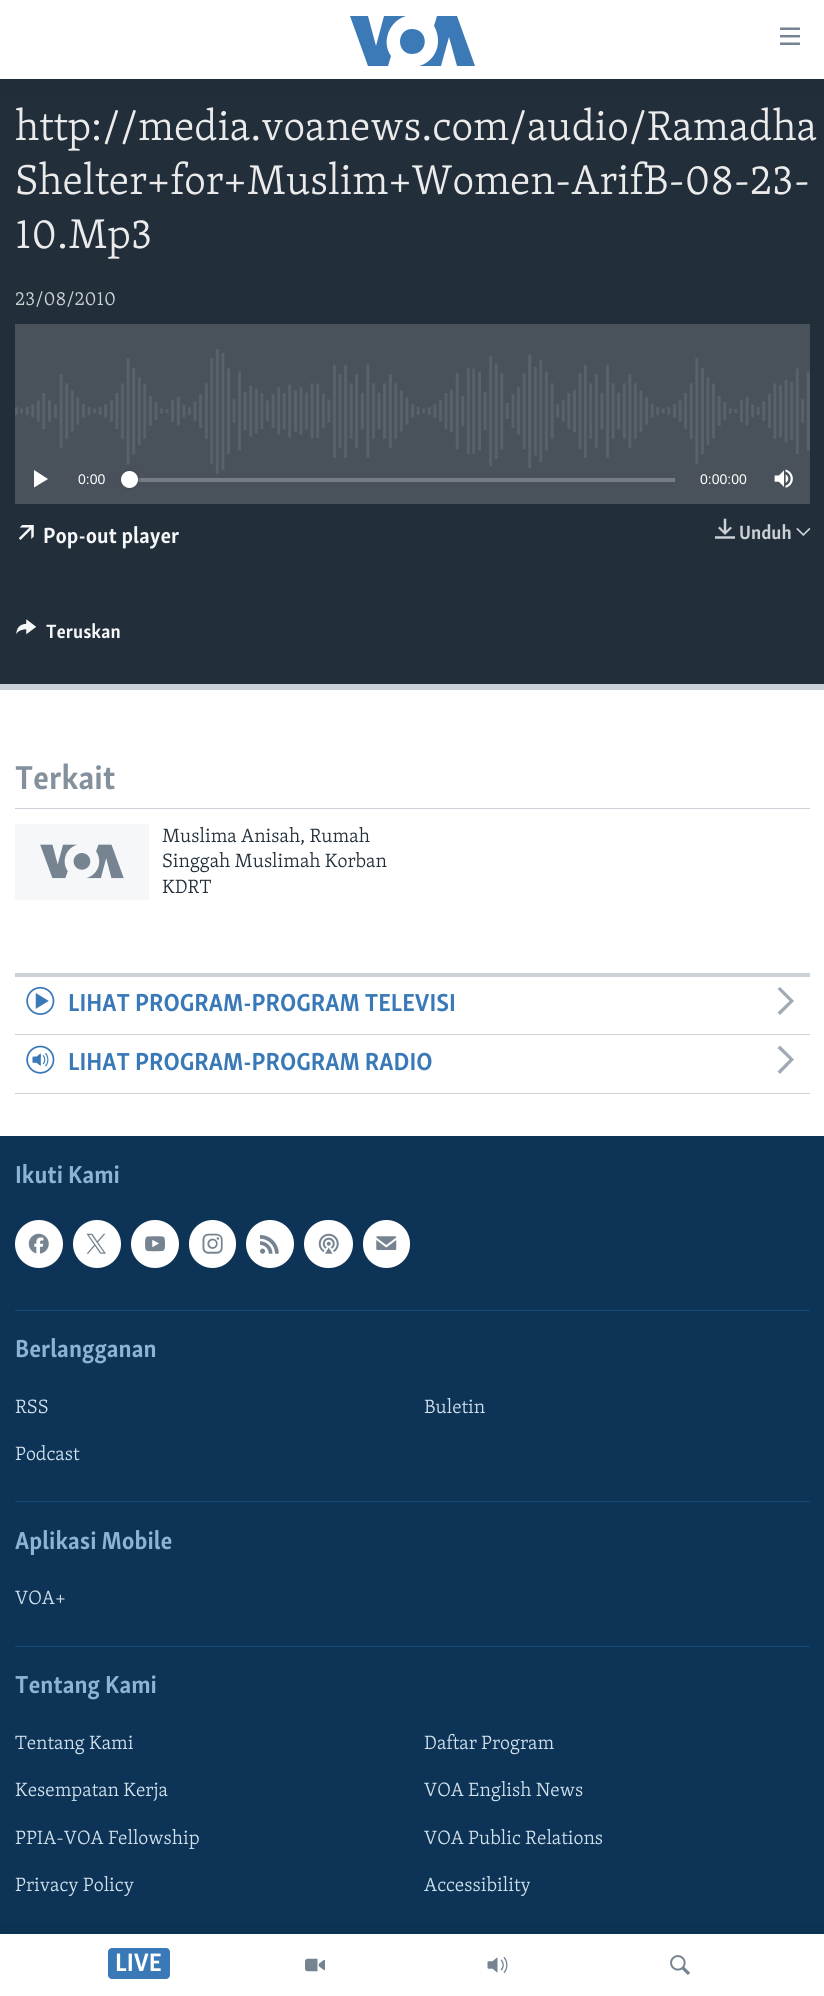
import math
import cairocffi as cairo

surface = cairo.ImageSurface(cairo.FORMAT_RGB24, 824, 1996)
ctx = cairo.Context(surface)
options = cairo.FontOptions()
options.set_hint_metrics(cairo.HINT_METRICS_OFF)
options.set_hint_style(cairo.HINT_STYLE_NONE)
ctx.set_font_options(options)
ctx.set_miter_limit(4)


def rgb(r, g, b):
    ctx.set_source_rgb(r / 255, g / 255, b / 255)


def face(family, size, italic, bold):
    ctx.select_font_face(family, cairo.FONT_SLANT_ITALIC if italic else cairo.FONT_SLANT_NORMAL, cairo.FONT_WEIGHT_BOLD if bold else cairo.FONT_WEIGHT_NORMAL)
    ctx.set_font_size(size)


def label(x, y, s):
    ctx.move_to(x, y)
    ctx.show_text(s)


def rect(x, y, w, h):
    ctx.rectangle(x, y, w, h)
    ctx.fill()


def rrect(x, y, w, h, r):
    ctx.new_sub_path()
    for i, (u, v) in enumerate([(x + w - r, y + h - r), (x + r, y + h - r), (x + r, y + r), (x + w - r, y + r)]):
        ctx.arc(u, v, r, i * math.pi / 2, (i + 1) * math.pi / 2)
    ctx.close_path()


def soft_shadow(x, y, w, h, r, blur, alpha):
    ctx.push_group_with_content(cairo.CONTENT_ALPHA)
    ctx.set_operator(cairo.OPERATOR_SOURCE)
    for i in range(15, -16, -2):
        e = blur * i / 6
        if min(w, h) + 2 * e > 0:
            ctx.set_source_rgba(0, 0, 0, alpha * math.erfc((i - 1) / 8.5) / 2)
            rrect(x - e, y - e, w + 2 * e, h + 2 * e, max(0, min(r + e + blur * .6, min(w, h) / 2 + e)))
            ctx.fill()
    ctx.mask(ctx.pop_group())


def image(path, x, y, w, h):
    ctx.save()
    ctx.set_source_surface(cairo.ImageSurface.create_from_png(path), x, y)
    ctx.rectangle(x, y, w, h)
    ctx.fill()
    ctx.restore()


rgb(255, 255, 255)
ctx.paint()
rgb(34, 47, 58)
rect(0, 79, 824, 605)
rgb(203, 209, 214)
rect(0, 684, 824, 6)
face('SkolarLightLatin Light', 42.75, 0, 0)
rgb(235, 235, 235)
label(15, 140, 'http://media.voanews.com/audio/Ramadha')
label(15, 194, 'Shelter+for+Muslim+Women-ArifB-08-23-')
label(15, 248, '10.Mp3')
face('SkolarLightLatin Light', 19.75, 0, 0)
rgb(203, 209, 214)
label(15, 305, '23/08/2010')
rgb(73, 82, 90)
rect(15, 324, 795, 180)
image('image0.png', 15, 349, 795, 125)
rgb(255, 255, 255)
ctx.new_path()
ctx.move_to(34, 487.5)
ctx.line_to(48, 479)
ctx.line_to(34, 470)
ctx.close_path()
ctx.fill()
face('Liberation Sans', 14, 0, 0)
label(78, 484, '0:00')
rgb(119, 125, 131)
rect(129, 478, 546, 4)
rgb(65, 65, 68)
soft_shadow(121, 471, 17, 17, 8.5, 2, 1)
rgb(255, 255, 255)
ctx.arc(129.5, 479.5, 8.5, 0, 2 * math.pi)
ctx.fill()
label(700, 484, '0:00:00')
image('image1.png', 774, 469, 19, 19)
image('image2.png', 18, 525, 16, 15)
face('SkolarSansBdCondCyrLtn', 22.5, 0, 1)
rgb(246, 247, 248)
label(43, 543, 'Pop-out player')
image('image3.png', 715, 518, 20, 21)
face('SkolarSansBdCondCyrLtn', 19.75, 0, 1)
rgb(203, 209, 214)
label(739, 539, 'Unduh')
image('image4.png', 796, 527, 15, 9)
image('image5.png', 16, 619, 21, 16)
rgb(246, 247, 248)
label(46, 638, 'Teruskan')
rgb(203, 209, 214)
rect(15, 808, 795, 1)
face('SkolarSansBdCondCyrLtn', 34, 0, 1)
rgb(132, 145, 157)
label(15, 789, 'Terkait')
rgb(246, 247, 248)
rect(15, 824, 134, 76)
image('image6.png', 40, 844, 84, 35)
face('SkolarLightLatin Light', 19.75, 0, 0)
rgb(34, 47, 58)
label(162, 842, 'Muslima Anisah, Rumah')
label(162, 867, 'Singgah Muslimah Korban')
label(162, 893, 'KDRT')
rgb(203, 209, 214)
rect(15, 973, 795, 4)
rect(15, 1034, 795, 1)
image('image7.png', 26, 986, 29, 29)
face('SkolarSansBdCondCyrLtn', 25.25, 0, 1)
rgb(58, 121, 183)
label(68, 1011, 'LIHAT PROGRAM-PROGRAM TELEVISI')
rgb(161, 170, 180)
ctx.new_path()
ctx.move_to(780, 1015)
ctx.line_to(794, 1001)
ctx.line_to(780, 987)
ctx.line_to(777.5, 989)
ctx.line_to(789.5, 1001)
ctx.line_to(777.5, 1012.5)
ctx.close_path()
ctx.fill()
rgb(203, 209, 214)
rect(15, 1093, 795, 1)
image('image8.png', 26, 1045, 29, 29)
rgb(58, 121, 183)
label(68, 1070, 'LIHAT PROGRAM-PROGRAM RADIO')
rgb(161, 170, 180)
ctx.new_path()
ctx.move_to(780, 1074)
ctx.line_to(794, 1059.5)
ctx.line_to(780, 1045.5)
ctx.line_to(777.5, 1048)
ctx.line_to(789.5, 1059.5)
ctx.line_to(777.5, 1071.5)
ctx.close_path()
ctx.fill()
rgb(13, 52, 86)
rect(0, 1136, 824, 798)
rgb(141, 179, 212)
label(15, 1183, 'Ikuti Kami')
rgb(255, 255, 255)
ctx.new_path()
ctx.arc(39, 1244, 24, 0, 2 * math.pi)
ctx.fill()
image('image9.png', 28, 1233, 21, 21)
ctx.arc(97, 1244, 24, 0, 2 * math.pi)
ctx.fill()
image('image10.png', 86, 1233, 20, 21)
ctx.arc(155, 1244, 24, 0, 2 * math.pi)
ctx.fill()
image('image11.png', 145, 1236, 20, 16)
rrect(189, 1220, 47, 48, 23.5)
ctx.fill()
image('image12.png', 202, 1233, 21, 21)
ctx.arc(270, 1244, 24, 0, 2 * math.pi)
ctx.fill()
image('image13.png', 260, 1235, 19, 19)
rrect(304, 1220, 49, 48, 24)
ctx.fill()
image('image14.png', 318, 1233, 21, 21)
rrect(363, 1220, 47, 48, 23.5)
ctx.fill()
image('image15.png', 376, 1236, 21, 14)
rgb(19, 73, 118)
rect(15, 1310, 795, 1)
rgb(141, 179, 212)
label(15, 1357, 'Berlangganan')
face('SkolarLightLatin Light', 19.75, 0, 0)
rgb(209, 225, 238)
label(15, 1413, 'RSS')
label(424, 1413, 'Buletin')
label(15, 1460, 'Podcast')
rgb(19, 73, 118)
rect(15, 1501, 795, 1)
face('SkolarSansBdCondCyrLtn', 25.25, 0, 1)
rgb(141, 179, 212)
label(15, 1549, 'Aplikasi Mobile')
face('SkolarLightLatin Light', 19.75, 0, 0)
rgb(209, 225, 238)
label(15, 1604, 'VOA+')
rgb(19, 73, 118)
rect(15, 1646, 795, 1)
face('SkolarSansBdCondCyrLtn', 25.25, 0, 1)
rgb(141, 179, 212)
label(15, 1693, 'Tentang Kami')
face('SkolarLightLatin Light', 19.75, 0, 0)
rgb(209, 225, 238)
label(15, 1749, 'Tentang Kami')
label(424, 1749, 'Daftar Program')
label(15, 1796, 'Kesempatan Kerja')
label(424, 1796, 'VOA English News')
label(15, 1844, 'PPIA-VOA Fellowship')
label(424, 1844, 'VOA Public Relations')
label(15, 1891, 'Privacy Policy')
label(424, 1891, 'Accessibility')
rgb(0, 0, 0)
soft_shadow(0, 0, 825, 79, 0, 12.5, 0.1)
rgb(255, 255, 255)
rect(0, 0, 824, 79)
rgb(59, 121, 183)
ctx.new_path()
ctx.move_to(391, 56)
ctx.line_to(388, 66)
ctx.line_to(368, 66)
ctx.line_to(350, 16)
ctx.line_to(368, 16)
ctx.line_to(376, 46)
ctx.line_to(384, 16)
ctx.line_to(406, 16)
ctx.curve_to(389, 21, 381, 42, 391, 56)
ctx.close_path()
ctx.move_to(412, 29)
ctx.curve_to(396, 29, 396, 54, 412, 54)
ctx.curve_to(429, 54, 429, 29, 412, 29)
ctx.close_path()
ctx.move_to(438, 41)
ctx.curve_to(438, 53, 430, 63, 419, 66)
ctx.line_to(441, 66)
ctx.line_to(449, 37)
ctx.line_to(457, 66)
ctx.line_to(475, 66)
ctx.line_to(457, 16)
ctx.line_to(437, 16)
ctx.line_to(434, 26)
ctx.curve_to(437, 31, 438, 36, 438, 41)
ctx.close_path()
ctx.fill()
image('image16.png', 780, 27, 20, 18)
rgb(0, 0, 0)
soft_shadow(0, 1934, 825, 62, 0, 12.5, 0.1)
rgb(255, 255, 255)
rect(0, 1934, 824, 62)
rgb(58, 121, 183)
rrect(108, 1948, 62, 31, 4)
ctx.fill()
face('SkolarSansBdCondCyrLtn', 26, 0, 1)
rgb(255, 255, 255)
label(115, 1971, 'LIVE')
image('image17.png', 305, 1958, 20, 14)
image('image18.png', 487, 1957, 21, 16)
image('image19.png', 670, 1955, 20, 20)
surface.write_to_png('render.png')
